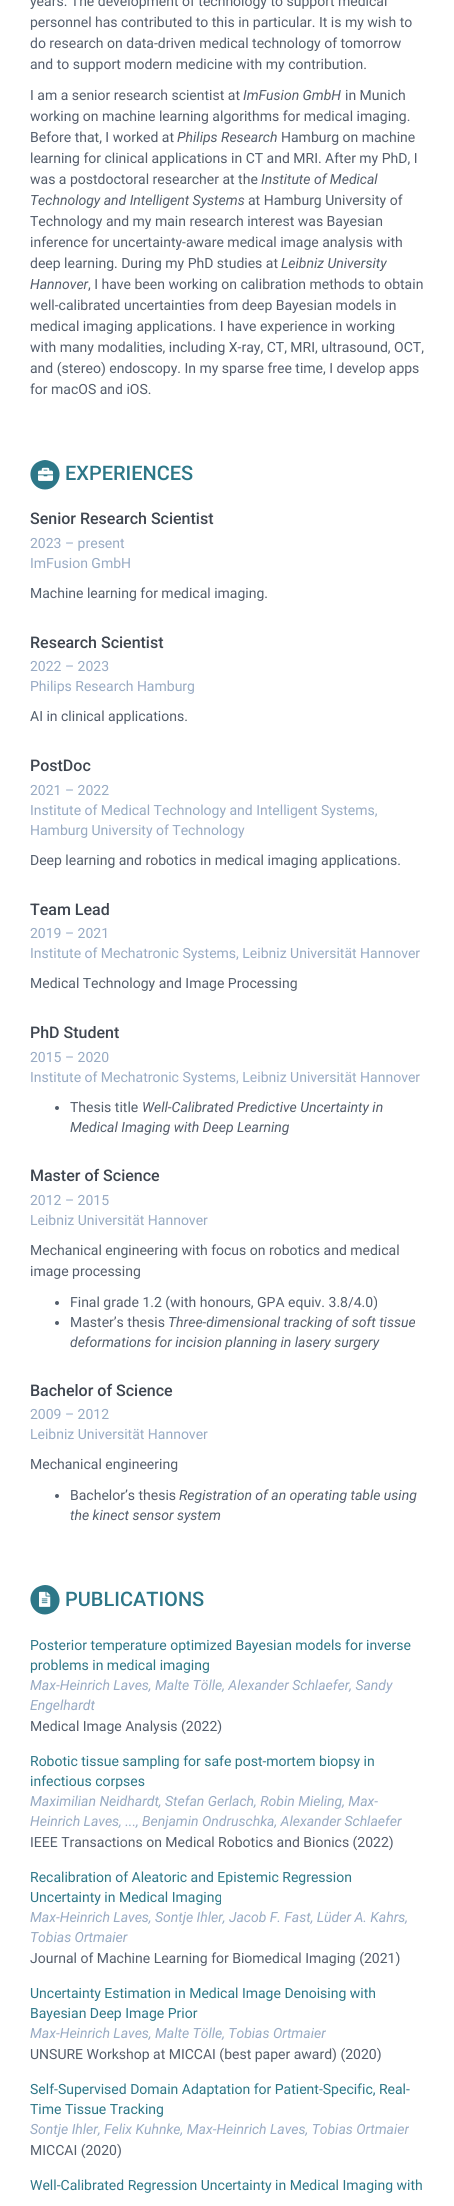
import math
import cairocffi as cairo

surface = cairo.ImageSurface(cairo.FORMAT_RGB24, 454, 2206)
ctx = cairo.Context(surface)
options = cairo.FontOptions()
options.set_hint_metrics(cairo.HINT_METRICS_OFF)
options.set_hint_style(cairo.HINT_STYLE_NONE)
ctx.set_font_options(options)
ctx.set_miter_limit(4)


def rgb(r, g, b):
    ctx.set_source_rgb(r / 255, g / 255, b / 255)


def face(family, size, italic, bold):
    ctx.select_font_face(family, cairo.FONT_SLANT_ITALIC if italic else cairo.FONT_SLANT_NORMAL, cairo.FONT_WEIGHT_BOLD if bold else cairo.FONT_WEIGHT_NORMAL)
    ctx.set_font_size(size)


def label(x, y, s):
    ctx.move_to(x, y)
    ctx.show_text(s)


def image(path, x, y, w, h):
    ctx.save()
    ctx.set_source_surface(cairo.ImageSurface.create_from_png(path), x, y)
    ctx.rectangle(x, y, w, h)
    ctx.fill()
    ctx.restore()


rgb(255, 255, 255)
ctx.paint()
face('Roboto', 14, 0, 0)
rgb(84, 94, 108)
label(30, 6, 'years. The development of technology to support medical')
label(30, 27, 'personnel has contributed to this in particular. It is my wish to')
label(30, 48, 'do research on data-driven medical technology of tomorrow')
label(30, 69, 'and to support modern medicine with my contribution.')
label(30, 100, 'I am a senior research scientist at')
face('Roboto', 14, 1, 0)
label(243, 100, 'ImFusion GmbH')
face('Roboto', 14, 0, 0)
label(345, 100, 'in Munich')
label(30, 121, 'working on machine learning algorithms for medical imaging.')
label(30, 142, 'Before that, I worked at')
face('Roboto', 14, 1, 0)
label(177, 142, 'Philips Research')
face('Roboto', 14, 0, 0)
label(281, 142, 'Hamburg on machine')
label(30, 163, 'learning for clinical applications in CT and MRI. After my PhD, I')
label(30, 184, 'was a postdoctoral researcher at the')
face('Roboto', 14, 1, 0)
label(261, 184, 'Institute of Medical')
label(30, 205, 'Technology and Intelligent Systems')
face('Roboto', 14, 0, 0)
label(248, 205, 'at Hamburg University of')
label(30, 226, 'Technology and my main research interest was Bayesian')
label(30, 247, 'inference for uncertainty-aware medical image analysis with')
label(30, 268, 'deep learning. During my PhD studies at')
face('Roboto', 14, 1, 0)
label(281, 268, 'Leibniz University')
label(30, 289, 'Hannover')
face('Roboto', 14, 0, 0)
label(88, 289, ', I have been working on calibration methods to obtain')
label(30, 310, 'well-calibrated uncertainties from deep Bayesian models in')
label(30, 331, 'medical imaging applications. I have experience in working')
label(30, 352, 'with many modalities, including X-ray, CT, MRI, ultrasound, OCT,')
label(30, 373, 'and (stereo) endoscopy. In my sparse free time, I develop apps')
label(30, 394, 'for macOS and iOS.')
rgb(45, 119, 136)
ctx.new_path()
ctx.move_to(45, 460)
ctx.curve_to(42, 460, 38.5, 461.5, 36, 463)
ctx.curve_to(25, 471.5, 31.5, 489.5, 45, 489.5)
ctx.curve_to(58.5, 489.5, 65, 471.5, 54, 463)
ctx.curve_to(51.5, 461.5, 48, 460, 45, 460)
ctx.close_path()
ctx.fill()
image('image0.png', 38, 467, 15, 14)
face('Roboto Medium', 20, 0, 0)
label(65, 480, 'EXPERIENCES')
face('Roboto Medium', 16, 0, 0)
rgb(63, 70, 80)
label(30, 524, 'Senior Research Scientist')
face('Roboto', 14, 0, 0)
rgb(151, 170, 195)
label(30, 548, '2023 – present')
label(30, 568, 'ImFusion GmbH')
rgb(84, 94, 108)
label(30, 598, 'Machine learning for medical imaging.')
face('Roboto Medium', 16, 0, 0)
rgb(63, 70, 80)
label(30, 648, 'Research Scientist')
face('Roboto', 14, 0, 0)
rgb(151, 170, 195)
label(30, 671, '2022 – 2023')
label(30, 691, 'Philips Research Hamburg')
rgb(84, 94, 108)
label(30, 721, 'AI in clinical applications.')
face('Roboto Medium', 16, 0, 0)
rgb(63, 70, 80)
label(30, 771, 'PostDoc')
face('Roboto', 14, 0, 0)
rgb(151, 170, 195)
label(30, 795, '2021 – 2022')
label(30, 815, 'Institute of Medical Technology and Intelligent Systems,')
label(30, 835, 'Hamburg University of Technology')
rgb(84, 94, 108)
label(30, 865, 'Deep learning and robotics in medical imaging applications.')
face('Roboto Medium', 16, 0, 0)
rgb(63, 70, 80)
label(30, 915, 'Team Lead')
face('Roboto', 14, 0, 0)
rgb(151, 170, 195)
label(30, 938, '2019 – 2021')
label(30, 958, 'Institute of Mechatronic Systems, Leibniz Universität Hannover')
rgb(84, 94, 108)
label(30, 988, 'Medical Technology and Image Processing')
face('Roboto Medium', 16, 0, 0)
rgb(63, 70, 80)
label(30, 1038, 'PhD Student')
face('Roboto', 14, 0, 0)
rgb(151, 170, 195)
label(30, 1062, '2015 – 2020')
label(30, 1082, 'Institute of Mechatronic Systems, Leibniz Universität Hannover')
rgb(84, 94, 108)
ctx.new_path()
ctx.arc(57, 1108, 2, 0, 2 * math.pi)
ctx.fill()
label(70, 1112, 'Thesis title')
face('Roboto', 14, 1, 0)
label(142, 1112, 'Well-Calibrated Predictive Uncertainty in')
label(70, 1132, 'Medical Imaging with Deep Learning')
face('Roboto Medium', 16, 0, 0)
rgb(63, 70, 80)
label(30, 1181, 'Master of Science')
face('Roboto', 14, 0, 0)
rgb(151, 170, 195)
label(30, 1205, '2012 – 2015')
label(30, 1225, 'Leibniz Universität Hannover')
rgb(84, 94, 108)
label(30, 1255, 'Mechanical engineering with focus on robotics and medical')
label(30, 1276, 'image processing')
ctx.new_path()
ctx.arc(57, 1303, 2, 0, 2 * math.pi)
ctx.fill()
label(70, 1307, 'Final grade 1.2 (with honours, GPA equiv. 3.8/4.0)')
ctx.new_path()
ctx.arc(57, 1323, 2, 0, 2 * math.pi)
ctx.fill()
label(70, 1327, 'Master’s thesis')
face('Roboto', 14, 1, 0)
label(168, 1327, 'Three-dimensional tracking of soft tissue')
label(70, 1347, 'deformations for incision planning in lasery surgery')
face('Roboto Medium', 16, 0, 0)
rgb(63, 70, 80)
label(30, 1396, 'Bachelor of Science')
face('Roboto', 14, 0, 0)
rgb(151, 170, 195)
label(30, 1419, '2009 – 2012')
label(30, 1439, 'Leibniz Universität Hannover')
rgb(84, 94, 108)
label(30, 1469, 'Mechanical engineering')
ctx.new_path()
ctx.arc(57, 1496, 2, 0, 2 * math.pi)
ctx.fill()
label(70, 1500, 'Bachelor’s thesis')
face('Roboto', 14, 1, 0)
label(179, 1500, 'Registration of an operating table using')
label(70, 1520, 'the kinect sensor system')
rgb(45, 119, 136)
ctx.new_path()
ctx.move_to(45, 1585)
ctx.curve_to(42, 1585, 38.5, 1586.5, 36, 1588)
ctx.curve_to(25, 1596.5, 31.5, 1614.5, 45, 1614.5)
ctx.curve_to(48, 1614.5, 51.5, 1613, 54, 1611.5)
ctx.curve_to(65, 1603, 58.5, 1585, 45, 1585)
ctx.close_path()
ctx.fill()
image('image1.png', 39, 1591, 12, 16)
face('Roboto Medium', 20, 0, 0)
label(65, 1606, 'PUBLICATIONS')
face('Roboto', 14, 0, 0)
label(30, 1650, 'Posterior temperature optimized Bayesian models for inverse')
label(30, 1670, 'problems in medical imaging')
face('Roboto', 14, 1, 0)
rgb(151, 170, 195)
label(30, 1690, 'Max-Heinrich Laves, Malte Tölle, Alexander Schlaefer, Sandy')
label(30, 1710, 'Engelhardt')
face('Roboto', 14, 0, 0)
rgb(84, 94, 108)
label(30, 1731, 'Medical Image Analysis (2022)')
rgb(45, 119, 136)
label(30, 1766, 'Robotic tissue sampling for safe post-mortem biopsy in')
label(30, 1786, 'infectious corpses')
face('Roboto', 14, 1, 0)
rgb(151, 170, 195)
label(30, 1806, 'Maximilian Neidhardt, Stefan Gerlach, Robin Mieling, Max-')
label(30, 1826, 'Heinrich Laves, ..., Benjamin Ondruschka, Alexander Schlaefer')
face('Roboto', 14, 0, 0)
rgb(84, 94, 108)
label(30, 1847, 'IEEE Transactions on Medical Robotics and Bionics (2022)')
rgb(45, 119, 136)
label(30, 1882, 'Recalibration of Aleatoric and Epistemic Regression')
label(30, 1902, 'Uncertainty in Medical Imaging')
face('Roboto', 14, 1, 0)
rgb(151, 170, 195)
label(30, 1922, 'Max-Heinrich Laves, Sontje Ihler, Jacob F. Fast, Lüder A. Kahrs,')
label(30, 1942, 'Tobias Ortmaier')
face('Roboto', 14, 0, 0)
rgb(84, 94, 108)
label(30, 1963, 'Journal of Machine Learning for Biomedical Imaging (2021)')
rgb(45, 119, 136)
label(30, 1998, 'Uncertainty Estimation in Medical Image Denoising with')
label(30, 2018, 'Bayesian Deep Image Prior')
face('Roboto', 14, 1, 0)
rgb(151, 170, 195)
label(30, 2038, 'Max-Heinrich Laves, Malte Tölle, Tobias Ortmaier')
face('Roboto', 14, 0, 0)
rgb(84, 94, 108)
label(30, 2059, 'UNSURE Workshop at MICCAI (best paper award) (2020)')
rgb(45, 119, 136)
label(30, 2094, 'Self-Supervised Domain Adaptation for Patient-Specific, Real-')
label(30, 2114, 'Time Tissue Tracking')
face('Roboto', 14, 1, 0)
rgb(151, 170, 195)
label(30, 2134, 'Sontje Ihler, Felix Kuhnke, Max-Heinrich Laves, Tobias Ortmaier')
face('Roboto', 14, 0, 0)
rgb(84, 94, 108)
label(30, 2155, 'MICCAI (2020)')
rgb(45, 119, 136)
label(30, 2190, 'Well-Calibrated Regression Uncertainty in Medical Imaging with')
surface.write_to_png('render.png')
